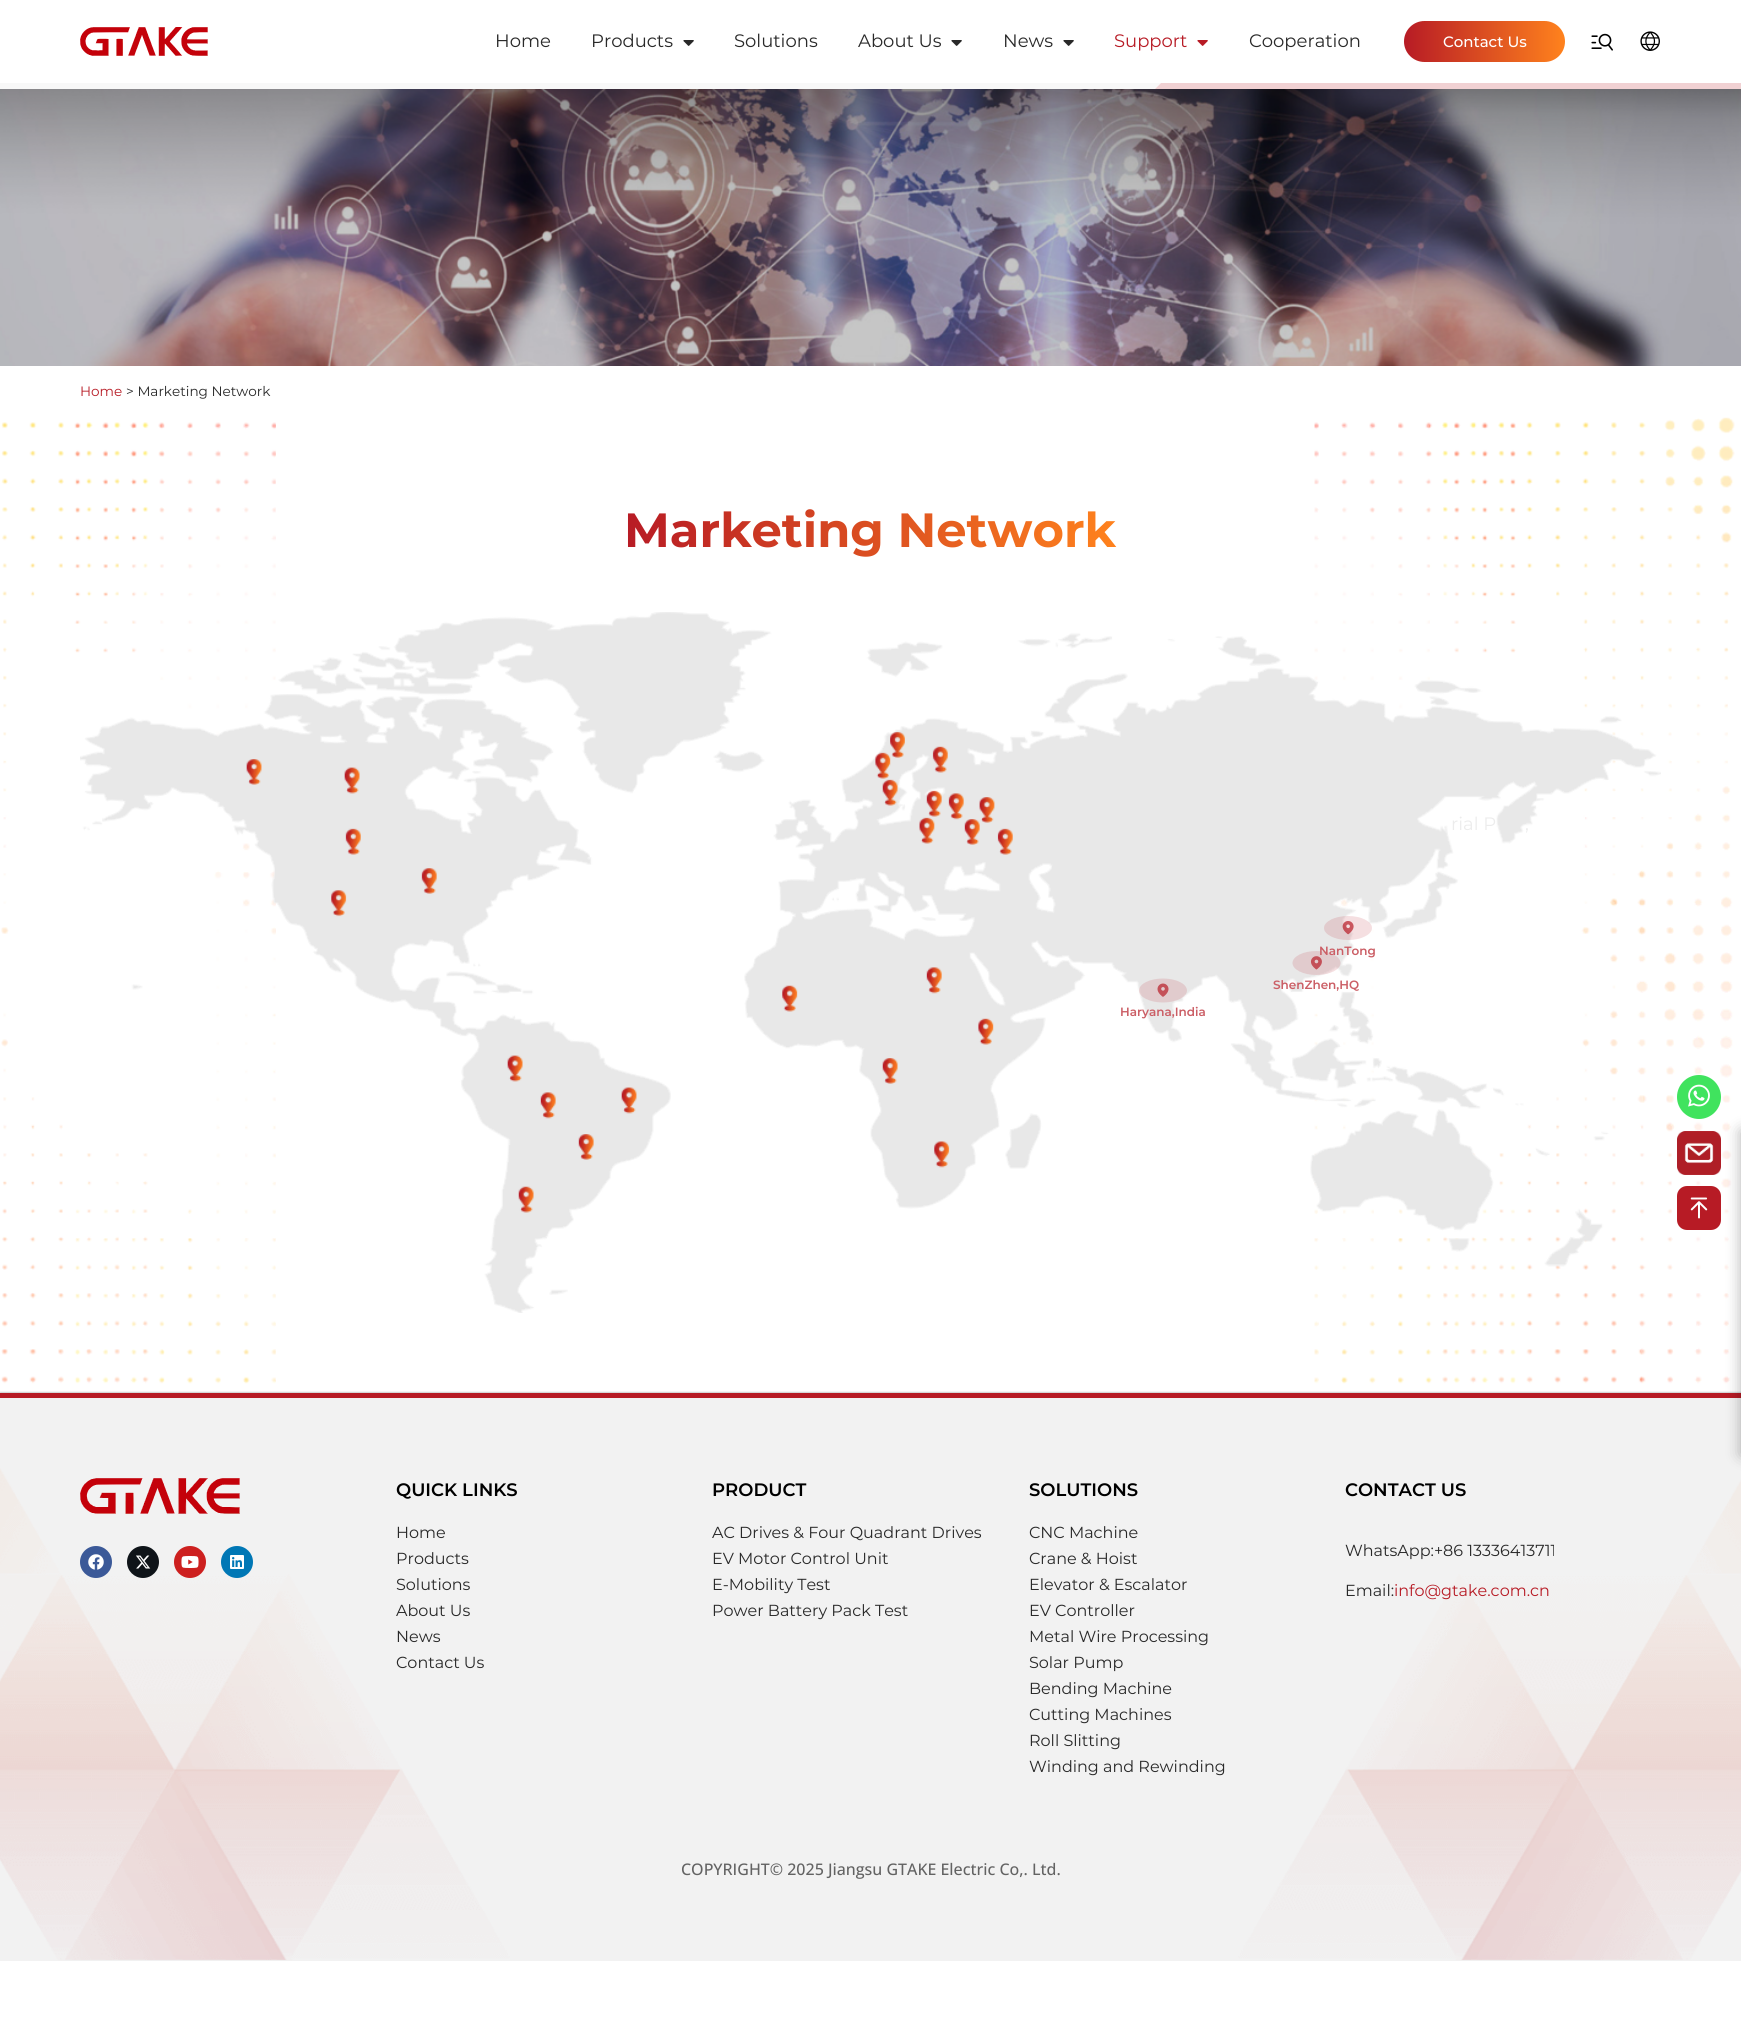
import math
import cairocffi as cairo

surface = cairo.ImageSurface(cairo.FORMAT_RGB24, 1741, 2037)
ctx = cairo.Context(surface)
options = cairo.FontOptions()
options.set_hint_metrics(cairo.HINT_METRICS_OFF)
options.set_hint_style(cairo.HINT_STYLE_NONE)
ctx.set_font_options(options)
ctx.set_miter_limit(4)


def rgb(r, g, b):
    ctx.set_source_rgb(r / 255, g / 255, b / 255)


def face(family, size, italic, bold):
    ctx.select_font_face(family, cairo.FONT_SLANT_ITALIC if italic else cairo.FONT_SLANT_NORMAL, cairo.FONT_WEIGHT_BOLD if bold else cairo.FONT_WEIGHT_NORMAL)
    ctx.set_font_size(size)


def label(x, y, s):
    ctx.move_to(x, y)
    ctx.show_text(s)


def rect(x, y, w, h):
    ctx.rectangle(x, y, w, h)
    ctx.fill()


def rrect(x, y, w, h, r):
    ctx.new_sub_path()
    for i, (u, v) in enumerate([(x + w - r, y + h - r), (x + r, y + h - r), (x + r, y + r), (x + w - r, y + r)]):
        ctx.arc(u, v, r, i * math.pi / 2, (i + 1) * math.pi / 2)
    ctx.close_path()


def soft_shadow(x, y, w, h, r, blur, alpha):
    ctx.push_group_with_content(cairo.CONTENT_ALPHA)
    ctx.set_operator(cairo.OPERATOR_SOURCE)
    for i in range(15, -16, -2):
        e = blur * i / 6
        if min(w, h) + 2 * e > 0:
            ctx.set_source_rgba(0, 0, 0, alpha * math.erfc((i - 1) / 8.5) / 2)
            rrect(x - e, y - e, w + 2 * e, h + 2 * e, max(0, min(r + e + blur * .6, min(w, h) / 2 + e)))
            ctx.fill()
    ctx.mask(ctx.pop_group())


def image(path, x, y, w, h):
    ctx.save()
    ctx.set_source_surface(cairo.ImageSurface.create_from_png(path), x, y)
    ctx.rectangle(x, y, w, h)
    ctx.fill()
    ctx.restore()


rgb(255, 255, 255)
ctx.paint()
image('image0.png', 80, 27, 128, 29)
face('Montserrat', 18, 0, 0)
rgb(41, 41, 41)
label(495, 47, 'Home')
label(591, 47, 'Products')
image('image1.png', 683, 40, 11, 6)
label(734, 47, 'Solutions')
label(858, 47, 'About Us')
image('image1.png', 951, 40, 11, 6)
label(1003, 47, 'News')
image('image1.png', 1063, 40, 11, 6)
rgb(183, 27, 37)
label(1114, 47, 'Support')
image('image2.png', 1197, 40, 11, 6)
rgb(41, 41, 41)
label(1249, 47, 'Cooperation')
gradient = cairo.LinearGradient(1404, 42, 1565, 41)
gradient.add_color_stop_rgba(0, 0.718, 0.106, 0.145, 1)
gradient.add_color_stop_rgba(1, 1, 0.51, 0.114, 1)
ctx.set_source(gradient)
rrect(1404, 21, 161, 41, 20.5)
ctx.fill()
face('Montserrat Medium', 15, 0, 0)
rgb(255, 255, 255)
label(1443, 47, 'Contact Us')
image('image3.png', 1591, 33, 22, 18)
image('image4.png', 1640, 31, 20, 20)
rgb(248, 248, 248)
ctx.new_path()
ctx.move_to(-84, 83)
ctx.line_to(1161, 83)
ctx.line_to(1155, 89)
ctx.line_to(-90, 89)
ctx.close_path()
ctx.fill()
rgb(241, 209, 211)
ctx.new_path()
ctx.move_to(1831, 83)
ctx.line_to(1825, 89)
ctx.line_to(1155, 89)
ctx.line_to(1161, 83)
ctx.close_path()
ctx.fill()
image('image5.png', 0, 89, 1741, 277)
face('Montserrat', 13.6, 0, 0)
rgb(183, 27, 37)
label(80, 396, 'Home')
rgb(41, 41, 41)
label(126, 396, '> Marketing Network')
image('image6.png', 1, 417, 1734, 967)
face('Montserrat', 48, 0, 1)
gradient = cairo.LinearGradient(624, 530, 1117, 530)
gradient.add_color_stop_rgba(0, 0.718, 0.106, 0.145, 1)
gradient.add_color_stop_rgba(1, 1, 0.51, 0.114, 1)
ctx.set_source(gradient)
label(624, 547, 'Marketing Network')
image('image7.png', 80, 612, 1581, 701)
face('Montserrat', 18, 0, 0)
rgb(236, 236, 236)
label(1451, 830, 'rial P')
label(1525, 830, ',')
image('image8.png', 1310, 956, 12, 14)
ctx.set_source_rgba(0.718, 0.106, 0.145, 0.14)
ctx.new_path()
ctx.move_to(1316.5, 951)
ctx.curve_to(1330, 951, 1340.5, 956.5, 1340.5, 963)
ctx.curve_to(1340.5, 969.5, 1330, 975, 1316.5, 975)
ctx.curve_to(1303, 975, 1292.5, 969.5, 1292.5, 963)
ctx.curve_to(1292.5, 956.5, 1303, 951, 1316.5, 951)
ctx.close_path()
ctx.fill()
face('Montserrat SemiBold', 12, 0, 0)
rgb(203, 94, 101)
label(1273, 989, 'ShenZhen,HQ')
image('image9.png', 1342, 921, 12, 14)
ctx.set_source_rgba(0.718, 0.106, 0.145, 0.14)
ctx.new_path()
ctx.move_to(1348, 916)
ctx.curve_to(1361.5, 916, 1372, 921.5, 1372, 928)
ctx.curve_to(1372, 934.5, 1361.5, 940, 1348, 940)
ctx.curve_to(1334.5, 940, 1324, 934.5, 1324, 928)
ctx.curve_to(1324, 921.5, 1334.5, 916, 1348, 916)
ctx.close_path()
ctx.fill()
rgb(203, 94, 101)
label(1319, 955, 'NanTong')
image('image10.png', 1157, 983, 12, 14)
ctx.set_source_rgba(0.718, 0.106, 0.145, 0.14)
ctx.new_path()
ctx.move_to(1163, 978.5)
ctx.curve_to(1176.5, 978.5, 1187, 984, 1187, 990.5)
ctx.curve_to(1187, 997, 1176.5, 1002.5, 1163, 1002.5)
ctx.curve_to(1149.5, 1002.5, 1139, 997, 1139, 990.5)
ctx.curve_to(1139, 984, 1149.5, 978.5, 1163, 978.5)
ctx.close_path()
ctx.fill()
rgb(203, 94, 101)
label(1120, 1016, 'Haryana,India')
rgb(64, 227, 94)
ctx.new_path()
ctx.arc(1699, 1097, 22, 0, 2 * math.pi)
ctx.fill()
image('image11.png', 1688, 1084, 22, 23)
rgb(209, 209, 209)
soft_shadow(0, 1392, 1741, 568, 0, 0.5, 1)
image('image14.png', 0, 1398, 1741, 563)
rgb(183, 27, 37)
rect(0, 1393, 1741, 5)
rgb(0, 0, 0)
soft_shadow(1741, 1131, 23, 324, 0, 7.5, 0.3)
image('image12.png', 1677, 1131, 44, 44)
rgb(183, 27, 37)
rrect(1677, 1186, 44, 44, 10)
ctx.fill()
image('image13.png', 1690, 1197, 18, 22)
image('image15.png', 80, 1478, 160, 36)
rgb(59, 89, 152)
ctx.arc(96, 1562, 16, 0, 2 * math.pi)
ctx.fill()
image('image16.png', 88, 1554, 16, 16)
rgb(15, 20, 25)
ctx.arc(143, 1562, 16, 0, 2 * math.pi)
ctx.fill()
image('image17.png', 136, 1555, 15, 14)
rgb(205, 32, 31)
ctx.arc(190, 1562, 16, 0, 2 * math.pi)
ctx.fill()
image('image18.png', 181, 1556, 18, 12)
rgb(0, 119, 181)
ctx.arc(237, 1562, 16, 0, 2 * math.pi)
ctx.fill()
image('image19.png', 230, 1555, 14, 14)
face('Montserrat SemiBold', 18, 0, 0)
rgb(0, 0, 0)
label(396, 1496, 'QUICK LINKS')
face('Montserrat', 16, 0, 0)
rgb(41, 41, 41)
label(396, 1538, 'Home')
label(396, 1564, 'Products')
label(396, 1590, 'Solutions')
label(396, 1616, 'About Us')
label(396, 1642, 'News')
label(396, 1668, 'Contact Us')
face('Montserrat SemiBold', 18, 0, 0)
rgb(0, 0, 0)
label(712, 1496, 'PRODUCT')
face('Montserrat', 16, 0, 0)
rgb(41, 41, 41)
label(712, 1538, 'AC Drives & Four Quadrant Drives')
label(712, 1564, 'EV Motor Control Unit')
label(712, 1590, 'E-Mobility Test')
label(712, 1616, 'Power Battery Pack Test')
face('Montserrat SemiBold', 18, 0, 0)
rgb(0, 0, 0)
label(1029, 1496, 'SOLUTIONS')
face('Montserrat', 16, 0, 0)
rgb(41, 41, 41)
label(1029, 1538, 'CNC Machine')
label(1029, 1564, 'Crane & Hoist')
label(1029, 1590, 'Elevator & Escalator')
label(1029, 1616, 'EV Controller')
label(1029, 1642, 'Metal Wire Processing')
label(1029, 1668, 'Solar Pump')
label(1029, 1694, 'Bending Machine')
label(1029, 1720, 'Cutting Machines')
label(1029, 1746, 'Roll Slitting')
label(1029, 1772, 'Winding and Rewinding')
face('Montserrat SemiBold', 18, 0, 0)
rgb(0, 0, 0)
label(1345, 1496, 'CONTACT US')
face('Montserrat', 16, 0, 0)
rgb(41, 41, 41)
label(1345, 1556, 'WhatsApp:+86 13336413711')
label(1345, 1596, 'Email:')
rgb(183, 27, 37)
label(1394, 1596, 'info@gtake.com.cn')
face('Open Sans Medium', 16, 0, 0)
rgb(99, 99, 99)
label(681, 1875, 'COPYRIGHT© 2025 Jiangsu GTAKE Electric Co,. Ltd.')
surface.write_to_png('render.png')
